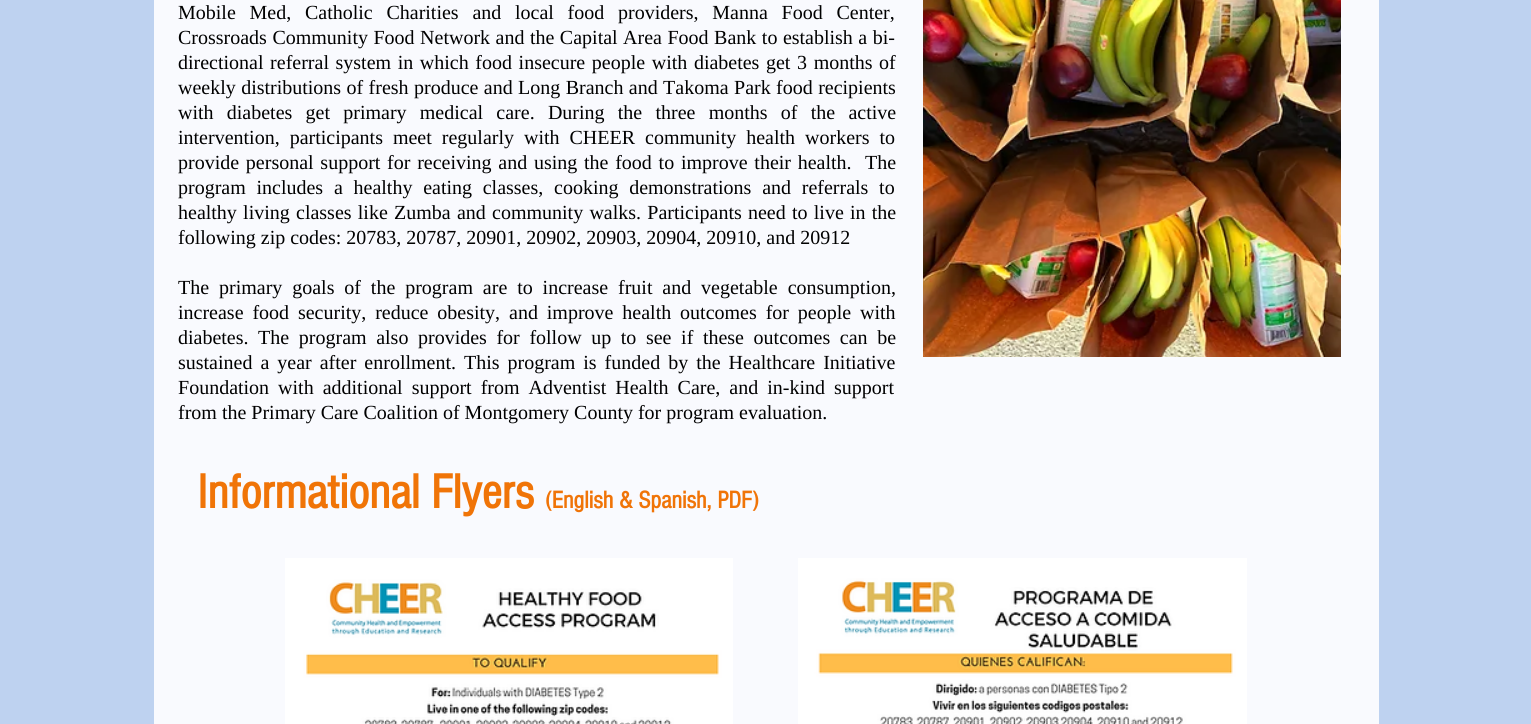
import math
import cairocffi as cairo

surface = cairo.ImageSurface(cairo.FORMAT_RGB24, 1531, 724)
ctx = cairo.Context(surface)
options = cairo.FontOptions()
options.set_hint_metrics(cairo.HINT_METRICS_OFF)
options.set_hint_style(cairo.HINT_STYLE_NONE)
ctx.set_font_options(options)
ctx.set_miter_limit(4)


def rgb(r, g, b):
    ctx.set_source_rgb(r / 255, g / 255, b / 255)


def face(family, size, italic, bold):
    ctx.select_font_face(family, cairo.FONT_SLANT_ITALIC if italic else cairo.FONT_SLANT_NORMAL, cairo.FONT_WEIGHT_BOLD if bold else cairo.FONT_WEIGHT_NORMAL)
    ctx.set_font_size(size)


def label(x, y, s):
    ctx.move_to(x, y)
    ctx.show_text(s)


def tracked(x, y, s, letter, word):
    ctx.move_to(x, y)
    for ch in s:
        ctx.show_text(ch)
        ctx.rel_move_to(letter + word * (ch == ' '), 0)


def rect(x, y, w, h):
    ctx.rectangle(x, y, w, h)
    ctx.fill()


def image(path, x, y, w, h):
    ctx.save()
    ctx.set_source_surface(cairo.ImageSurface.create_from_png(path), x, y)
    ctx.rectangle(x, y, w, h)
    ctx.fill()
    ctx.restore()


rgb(190, 210, 240)
ctx.paint()
rgb(249, 250, 254)
rect(154, 0, 1225, 724)
face('Liberation Serif', 20, 0, 0)
rgb(0, 0, 0)
tracked(178, 19, 'Mobile Med, Catholic Charities and local food providers, Manna Food Center,', 0, 8.75)
tracked(178, 44, 'Crossroads Community Food Network and the Capital Area Food Bank to establish a bi-', 0, 0.5)
tracked(178, 69, 'directional referral system in which food insecure people with diabetes get 3 months of', 0, 1.6)
tracked(178, 94, 'weekly distributions of fresh produce and Long Branch and Takoma Park food recipients', 0, 0.4)
tracked(178, 119, 'with diabetes get primary medical care. During the three months of the active', 0, 8.25)
tracked(178, 144, 'intervention, participants meet regularly with CHEER community health workers to', 0, 5)
tracked(178, 169, 'provide personal support for receiving and using the food to improve their health.  The', 0, 1.75)
tracked(178, 194, 'program includes a healthy eating classes, cooking demonstrations and referrals to', 0, 5.75)
tracked(178, 219, 'healthy living classes like Zumba and community walks. Participants need to live in the', 0, 1.25)
label(178, 244, 'following zip codes: 20783, 20787, 20901, 20902, 20903, 20904, 20910, and 20912')
tracked(178, 294, 'The primary goals of the program are to increase fruit and vegetable consumption,', 0, 4.9)
tracked(178, 319, 'increase food security, reduce obesity, and improve health outcomes for people with', 0, 3.9)
tracked(178, 344, 'diabetes. The program also provides for follow up to see if these outcomes can be', 0, 4.6)
tracked(178, 369, 'sustained a year after enrollment. This program is funded by the Healthcare Initiative', 0, 3)
tracked(178, 394, 'Foundation with additional support from Adventist Health Care, and in-kind support', 0, 4)
label(178, 419, 'from the Primary Care Coalition of Montgomery County for program evaluation.')
image('image0.png', 923, 0, 418, 357)
face('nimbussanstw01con', 50, 0, 1)
rgb(240, 116, 7)
label(197, 508, 'Informational Flyers')
face('nimbussanstw01con', 25, 0, 1)
label(545, 508, '(English & Spanish, PDF)')
image('image1.png', 285, 558, 448, 166)
image('image2.png', 798, 558, 449, 166)
surface.write_to_png('render.png')
